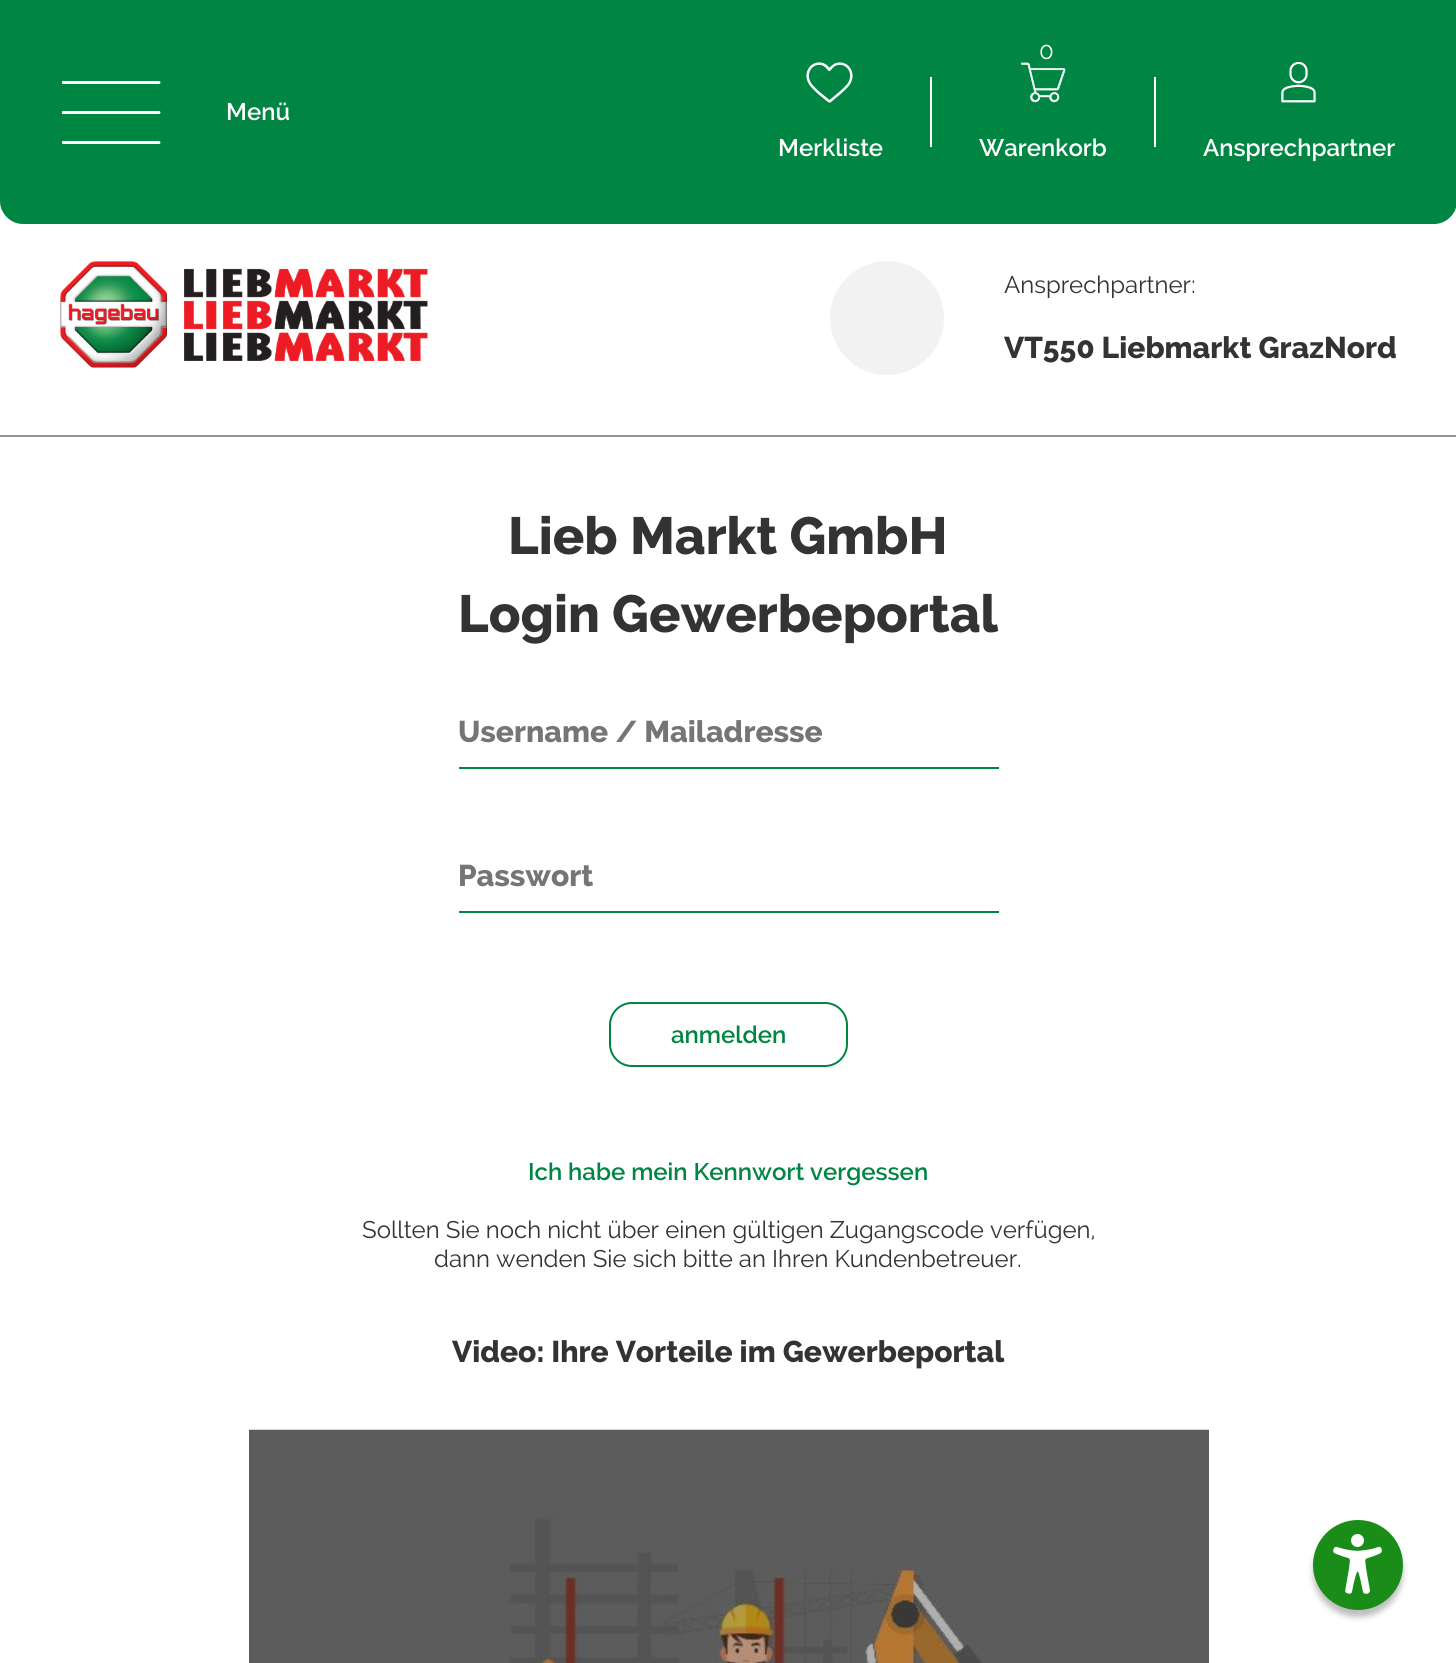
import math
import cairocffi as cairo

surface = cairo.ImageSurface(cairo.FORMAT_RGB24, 1456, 1663)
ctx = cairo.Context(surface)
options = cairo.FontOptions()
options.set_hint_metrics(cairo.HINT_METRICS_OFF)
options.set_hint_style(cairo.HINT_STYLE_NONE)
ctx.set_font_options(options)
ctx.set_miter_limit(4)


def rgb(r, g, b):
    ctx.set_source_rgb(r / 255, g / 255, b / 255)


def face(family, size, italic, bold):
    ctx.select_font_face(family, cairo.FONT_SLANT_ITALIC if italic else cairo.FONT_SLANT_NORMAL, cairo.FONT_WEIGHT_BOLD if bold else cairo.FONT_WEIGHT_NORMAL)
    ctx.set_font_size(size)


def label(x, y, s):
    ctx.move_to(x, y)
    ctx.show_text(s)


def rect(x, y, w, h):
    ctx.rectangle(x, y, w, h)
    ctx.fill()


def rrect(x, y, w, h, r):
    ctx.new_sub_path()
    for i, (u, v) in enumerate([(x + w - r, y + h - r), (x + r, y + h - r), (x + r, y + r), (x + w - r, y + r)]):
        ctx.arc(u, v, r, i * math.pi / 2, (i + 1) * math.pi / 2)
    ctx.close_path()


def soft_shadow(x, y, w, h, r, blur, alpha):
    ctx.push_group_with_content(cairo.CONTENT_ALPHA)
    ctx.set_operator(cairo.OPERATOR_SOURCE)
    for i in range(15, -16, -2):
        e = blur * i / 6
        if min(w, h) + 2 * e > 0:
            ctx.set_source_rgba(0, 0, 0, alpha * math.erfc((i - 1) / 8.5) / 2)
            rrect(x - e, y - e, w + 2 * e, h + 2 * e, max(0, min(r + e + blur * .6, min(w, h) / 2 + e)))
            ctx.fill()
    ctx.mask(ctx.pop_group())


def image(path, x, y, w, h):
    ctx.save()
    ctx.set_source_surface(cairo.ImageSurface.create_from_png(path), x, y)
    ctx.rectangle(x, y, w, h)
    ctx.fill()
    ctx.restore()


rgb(255, 255, 255)
ctx.paint()
rgb(0, 133, 67)
ctx.new_path()
ctx.move_to(0, 0)
ctx.line_to(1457, 0)
ctx.line_to(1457, 201)
ctx.curve_to(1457, 213.5, 1446.5, 224, 1434, 224)
ctx.line_to(23, 224)
ctx.curve_to(10.5, 224, 0, 213.5, 0, 201)
ctx.close_path()
ctx.fill()
face('Raleway', 24, 0, 0)
rgb(255, 255, 255)
label(1039, 59, '0')
rgb(147, 147, 147)
rect(0, 435, 1456, 2)
image('image0.png', 60, 261, 368, 107)
rgb(242, 242, 242)
ctx.arc(887, 318, 57, 0, 2 * math.pi)
ctx.fill()
rgb(51, 51, 51)
label(1004, 293, 'Ansprechpartner:')
face('Raleway ExtraBold', 30, 0, 0)
label(1004, 358, 'VT550 Liebmarkt GrazNord')
ctx.save()
ctx.rectangle(62, 81, 99, 63)
ctx.clip()
ctx.new_path()
ctx.move_to(63, 82.5)
ctx.line_to(159, 82.5)
rgb(255, 255, 255)
ctx.set_line_width(3)
ctx.set_line_cap(cairo.LINE_CAP_ROUND)
ctx.set_line_join(cairo.LINE_JOIN_ROUND)
ctx.stroke()
ctx.new_path()
ctx.move_to(63, 112.5)
ctx.line_to(159, 112.5)
ctx.stroke()
ctx.new_path()
ctx.move_to(63, 142.5)
ctx.line_to(159, 142.5)
ctx.stroke()
ctx.restore()
face('Raleway SemiBold', 24, 0, 0)
rgb(255, 255, 255)
label(226, 120, 'Menü')
image('image1.png', 806, 62, 47, 41)
rect(930, 77, 2, 70)
label(778, 156, 'Merkliste')
image('image2.png', 1021, 62, 45, 41)
rect(1154, 77, 2, 70)
label(979, 156, 'Warenkorb')
image('image3.png', 1281, 62, 35, 41)
label(1203, 156, 'Ansprechpartner')
face('Raleway ExtraBold', 52.25, 0, 0)
rgb(51, 51, 51)
label(508, 554, 'Lieb Markt GmbH')
label(458, 632, 'Login Gewerbeportal')
rgb(0, 133, 67)
rect(459, 767, 540, 2)
face('Raleway ExtraBold', 30, 0, 0)
rgb(117, 117, 117)
label(458, 742, 'Username / Mailadresse')
rgb(0, 133, 67)
rect(459, 911, 540, 2)
rgb(117, 117, 117)
label(458, 886, 'Passwort')
rrect(610, 1003, 237, 63, 22)
rgb(0, 133, 67)
ctx.stroke()
face('Raleway SemiBold', 24, 0, 0)
label(671, 1043, 'anmelden')
label(528, 1180, 'Ich habe mein Kennwort vergessen')
face('Raleway', 24, 0, 0)
rgb(51, 51, 51)
label(362, 1238, 'Sollten Sie noch nicht über einen gültigen Zugangscode verfügen,')
label(434, 1267, 'dann wenden Sie sich bitte an Ihren Kundenbetreuer.')
face('Raleway ExtraBold', 30, 0, 0)
label(452, 1362, 'Video: Ihre Vorteile im Gewerbeportal')
image('image4.png', 249, 1429, 960, 234)
rgb(0, 0, 0)
soft_shadow(1313, 1527, 90, 90, 45, 3, 0.26)
rgb(25, 141, 23)
ctx.arc(1358, 1565, 45, 0, 2 * math.pi)
ctx.fill()
image('image5.png', 1333, 1534, 49, 60)
surface.write_to_png('render.png')
